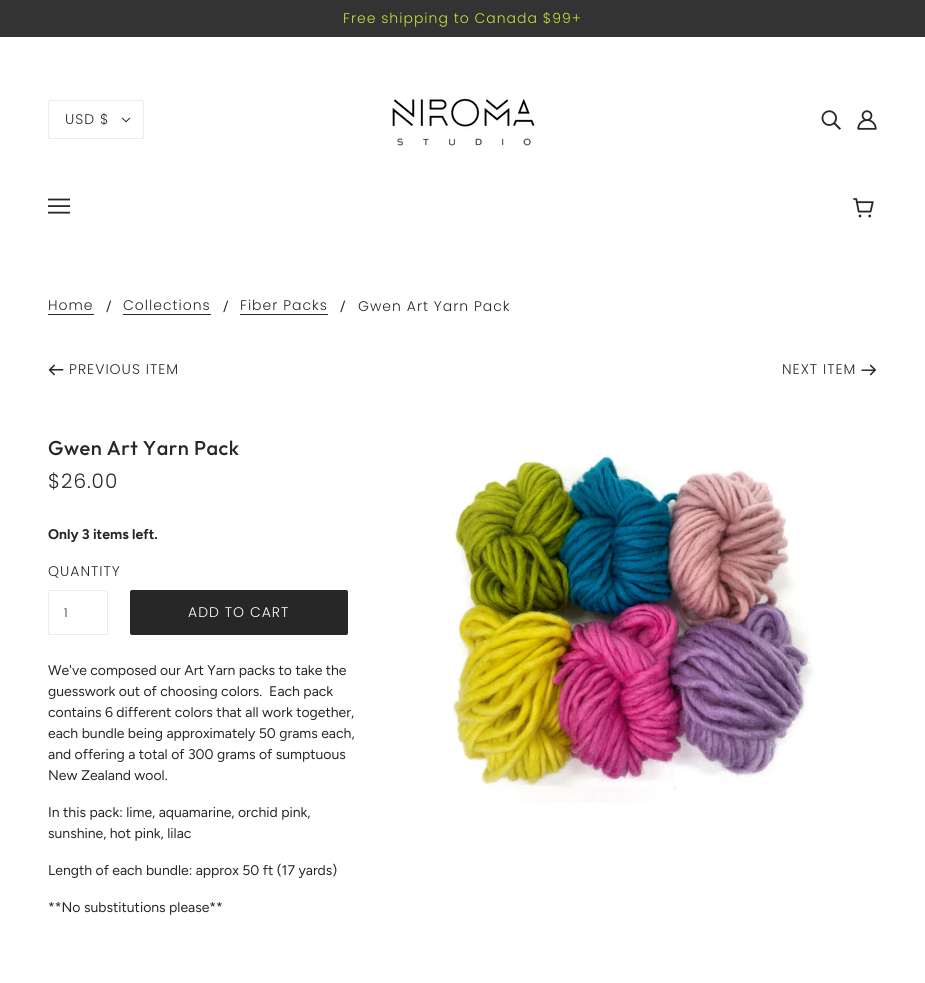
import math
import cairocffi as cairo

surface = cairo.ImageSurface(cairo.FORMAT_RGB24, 925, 983)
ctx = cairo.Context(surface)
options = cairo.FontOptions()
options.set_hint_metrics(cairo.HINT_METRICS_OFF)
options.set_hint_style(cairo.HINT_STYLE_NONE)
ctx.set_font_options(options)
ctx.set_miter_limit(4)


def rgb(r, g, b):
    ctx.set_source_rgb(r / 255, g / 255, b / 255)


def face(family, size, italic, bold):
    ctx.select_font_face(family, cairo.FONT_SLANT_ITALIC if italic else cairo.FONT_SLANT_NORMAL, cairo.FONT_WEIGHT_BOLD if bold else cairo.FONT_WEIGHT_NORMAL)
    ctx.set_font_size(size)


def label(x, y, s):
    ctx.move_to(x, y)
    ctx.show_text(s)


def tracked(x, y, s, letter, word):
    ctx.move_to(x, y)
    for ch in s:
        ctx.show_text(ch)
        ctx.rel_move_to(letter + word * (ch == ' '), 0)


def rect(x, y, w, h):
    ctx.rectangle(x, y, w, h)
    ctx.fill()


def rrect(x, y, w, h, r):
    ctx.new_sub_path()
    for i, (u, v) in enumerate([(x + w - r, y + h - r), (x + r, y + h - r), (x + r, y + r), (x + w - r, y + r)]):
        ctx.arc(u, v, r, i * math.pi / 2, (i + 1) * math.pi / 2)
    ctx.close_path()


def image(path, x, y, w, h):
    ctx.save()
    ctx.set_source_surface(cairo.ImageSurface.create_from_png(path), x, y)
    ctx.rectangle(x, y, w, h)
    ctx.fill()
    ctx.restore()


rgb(255, 255, 255)
ctx.paint()
rgb(51, 51, 51)
rect(0, 0, 925, 37)
face('Poppins Light', 14, 0, 0)
rgb(202, 222, 55)
tracked(343, 23, 'Free shipping to Canada $99+', 1, 0)
rrect(48.5, 100.5, 95, 38, 1.5)
rgb(235, 235, 235)
ctx.set_line_width(1)
ctx.stroke()
rgb(39, 39, 39)
tracked(65, 124, 'USD $', 1, 0)
image('image0.png', 121, 117, 10, 6)
image('image1.png', 392, 97, 144, 52)
image('image2.png', 821, 110, 20, 20)
image('image3.png', 857, 110, 20, 20)
image('image4.png', 48, 198, 22, 16)
image('image5.png', 853, 198, 21, 20)
tracked(48, 310, 'Home', 1, 0)
rect(48, 314, 46, 1)
face('Figtree', 14, 0, 0)
label(106, 311, '/')
face('Poppins Light', 14, 0, 0)
tracked(123, 310, 'Collections', 1, 0)
rect(123, 314, 88, 1)
face('Figtree', 14, 0, 0)
label(223, 311, '/')
face('Poppins Light', 14, 0, 0)
tracked(240, 310, 'Fiber Packs', 1, 0)
rect(240, 314, 88, 1)
face('Figtree', 14, 0, 0)
label(340, 311, '/')
face('Poppins Light', 14, 0, 0)
tracked(358, 311, 'Gwen Art Yarn Pack', 1, 0)
image('image6.png', 48, 364, 16, 12)
tracked(69, 374, 'PREVIOUS ITEM', 1, 0)
tracked(782, 374, 'NEXT ITEM', 1, 0)
image('image7.png', 861, 364, 16, 12)
face('Outfit Medium', 20, 0, 0)
tracked(48, 455, 'Gwen Art Yarn Pack', 0.5, 0)
face('Poppins Light', 20, 0, 0)
tracked(48, 488, '$26.00', 1, 0)
face('Figtree', 14, 0, 1)
label(48, 539, 'Only 3 items left.')
face('Poppins Light', 14, 0, 0)
tracked(48, 576, 'QUANTITY', 1, 0)
rrect(48.5, 590.5, 59, 44, 1.5)
rgb(235, 235, 235)
ctx.stroke()
face('Poppins Light', 12, 0, 0)
rgb(39, 39, 39)
tracked(64, 617, '1', 1, 0)
rrect(130, 590, 218, 45, 2)
ctx.fill()
face('Poppins Light', 14, 0, 0)
rgb(255, 255, 255)
tracked(188, 617, 'ADD TO CART', 1, 0)
image('image8.png', 452, 453, 367, 350)
face('Figtree', 14, 0, 0)
rgb(39, 39, 39)
label(48, 675, 'We\'ve composed our Art Yarn packs to take the')
label(48, 696, 'guesswork out of choosing colors.  Each pack')
label(48, 717, 'contains 6 different colors that all work together,')
label(48, 738, 'each bundle being approximately 50 grams each,')
label(48, 759, 'and offering a total of 300 grams of sumptuous')
label(48, 780, 'New Zealand wool.')
label(48, 817, 'In this pack: lime, aquamarine, orchid pink,')
label(48, 838, 'sunshine, hot pink, lilac')
label(48, 875, 'Length of each bundle: approx 50 ft (17 yards)')
label(48, 912, '**No substitutions please**')
surface.write_to_png('render.png')
